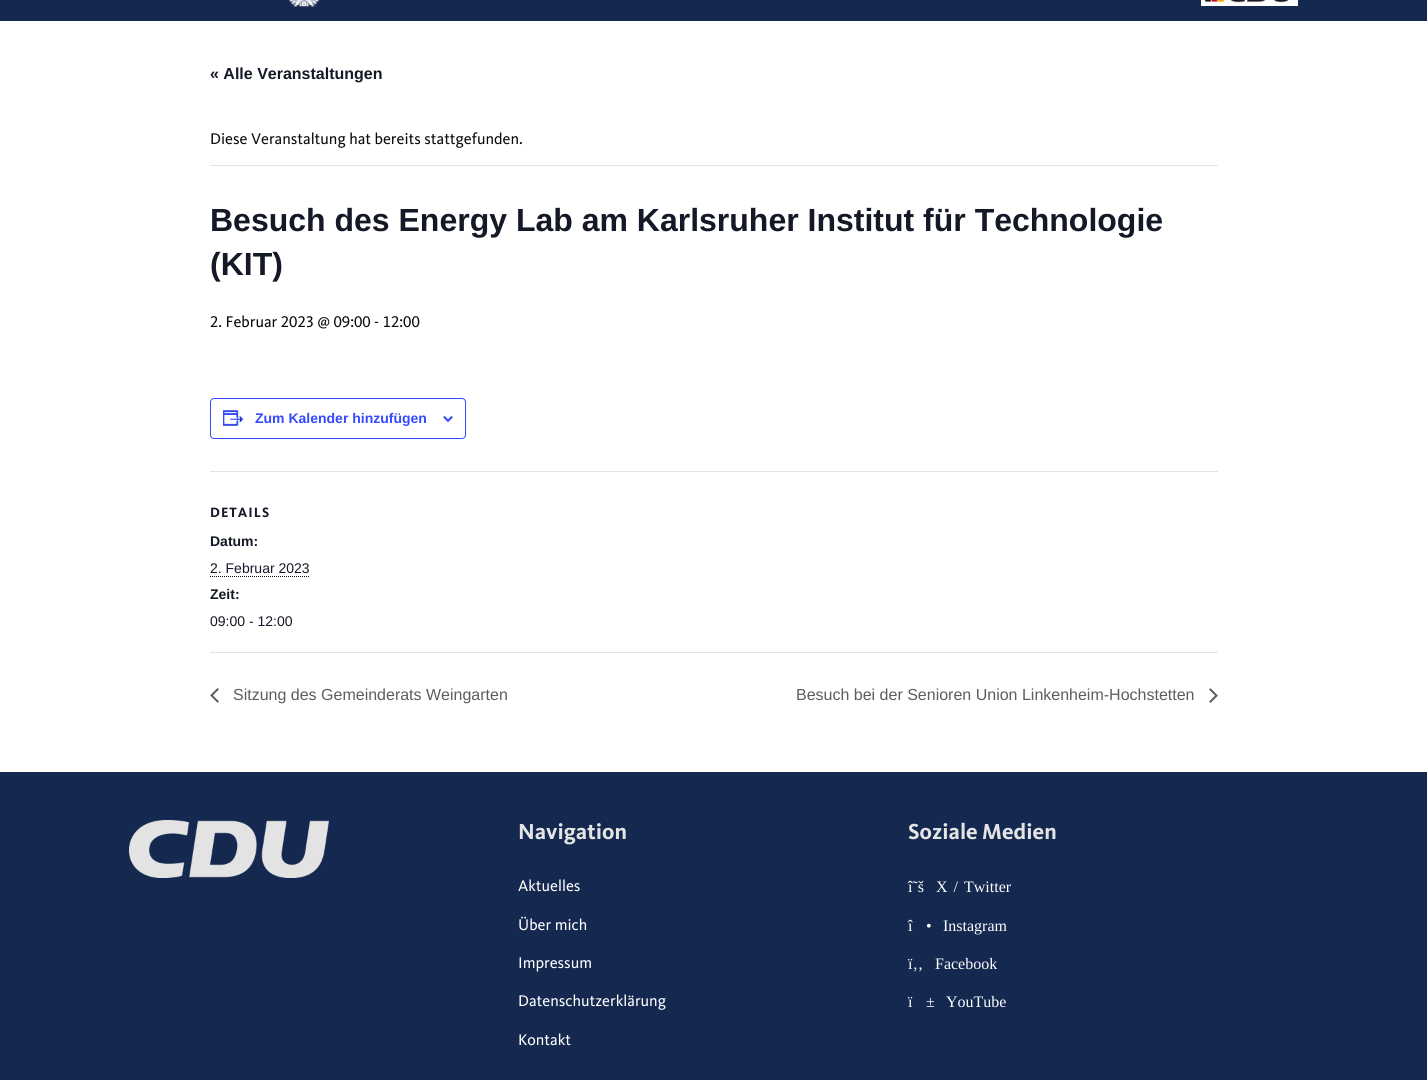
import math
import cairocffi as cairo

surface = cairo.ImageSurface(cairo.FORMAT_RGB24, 1427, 1080)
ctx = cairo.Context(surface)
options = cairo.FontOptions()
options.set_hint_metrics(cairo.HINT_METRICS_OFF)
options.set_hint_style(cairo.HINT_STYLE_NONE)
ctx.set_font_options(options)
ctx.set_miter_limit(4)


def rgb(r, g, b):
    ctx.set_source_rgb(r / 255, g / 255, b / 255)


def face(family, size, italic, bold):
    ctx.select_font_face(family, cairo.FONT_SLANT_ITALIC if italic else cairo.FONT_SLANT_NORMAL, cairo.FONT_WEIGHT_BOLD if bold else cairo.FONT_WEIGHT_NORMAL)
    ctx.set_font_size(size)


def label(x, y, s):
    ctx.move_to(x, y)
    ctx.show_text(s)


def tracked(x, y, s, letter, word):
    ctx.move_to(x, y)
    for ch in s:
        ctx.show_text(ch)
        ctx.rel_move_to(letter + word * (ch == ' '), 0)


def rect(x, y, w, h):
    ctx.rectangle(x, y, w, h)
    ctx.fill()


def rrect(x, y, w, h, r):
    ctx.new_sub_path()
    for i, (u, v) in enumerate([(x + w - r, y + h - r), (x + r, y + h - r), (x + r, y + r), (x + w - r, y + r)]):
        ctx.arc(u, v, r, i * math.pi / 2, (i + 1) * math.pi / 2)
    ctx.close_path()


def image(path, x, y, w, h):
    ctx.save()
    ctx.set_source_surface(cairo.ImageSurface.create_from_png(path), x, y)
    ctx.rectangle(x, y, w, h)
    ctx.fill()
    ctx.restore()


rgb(255, 255, 255)
ctx.paint()
rgb(20, 40, 80)
rect(0, 0, 1427, 21)
image('image0.png', 289, 0, 31, 7)
image('image1.png', 1201, 0, 97, 6)
face('Liberation Sans', 16, 0, 1)
rgb(20, 24, 39)
label(210, 79, '« Alle Veranstaltungen')
rgb(228, 228, 228)
rect(210, 165, 1008, 1)
face('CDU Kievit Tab', 16, 0, 0)
rgb(10, 10, 10)
label(210, 144, 'Diese Veranstaltung hat bereits stattgefunden.')
face('Liberation Sans', 32, 0, 1)
rgb(20, 24, 39)
label(210, 231, 'Besuch des Energy Lab am Karlsruher Institut für Technologie')
label(210, 275, '(KIT)')
face('CDU Kievit Tab', 16, 0, 0)
rgb(10, 10, 10)
label(210, 327, '2. Februar 2023 @ 09:00 - 12:00')
rrect(210.5, 398.5, 255, 40, 3.5)
rgb(51, 74, 255)
ctx.set_line_width(1)
ctx.stroke()
image('image2.png', 223, 410, 21, 16)
face('Liberation Sans', 14, 0, 1)
label(255, 423, 'Zum Kalender hinzufügen')
image('image3.png', 443, 416, 10, 6)
rgb(228, 228, 228)
rect(210, 471, 1008, 1)
face('CDU Kievit Tab', 14, 0, 1)
rgb(20, 24, 39)
tracked(210, 517, 'DETAILS', 1, 0)
face('Liberation Sans', 14, 0, 1)
label(210, 546, 'Datum:')
face('Liberation Sans', 14, 0, 0)
label(210, 573, '2. Februar 2023')
ctx.new_path()
ctx.move_to(210, 576.5)
ctx.line_to(309, 576.5)
rgb(10, 10, 10)
ctx.set_dash([1, 1])
ctx.stroke()
face('Liberation Sans', 14, 0, 1)
rgb(20, 24, 39)
label(210, 599, 'Zeit:')
face('Liberation Sans', 14, 0, 0)
label(210, 626, '09:00 - 12:00')
rgb(228, 228, 228)
rect(210, 652, 1008, 1)
image('image4.png', 210, 688, 9, 15)
face('Liberation Sans', 16, 0, 0)
rgb(93, 93, 93)
label(233, 700, 'Sitzung des Gemeinderats Weingarten')
label(796, 700, 'Besuch bei der Senioren Union Linkenheim-Hochstetten')
image('image5.png', 1209, 688, 9, 15)
rgb(20, 40, 80)
rect(0, 772, 1427, 308)
image('image6.png', 129, 820, 200, 58)
face('CDU Kievit Tab', 22.5, 0, 1)
rgb(228, 228, 228)
label(518, 839, 'Navigation')
face('CDU Kievit Tab', 16, 0, 0)
rgb(255, 255, 255)
label(518, 891, 'Aktuelles')
label(518, 930, 'Über mich')
label(518, 968, 'Impressum')
label(518, 1006, 'Datenschutzerklärung')
label(518, 1045, 'Kontakt')
face('CDU Kievit Tab', 22.5, 0, 1)
rgb(228, 228, 228)
label(908, 839, 'Soziale Medien')
face('Liberation Serif', 16, 0, 0)
rgb(255, 255, 255)
label(908, 892, 'î˜š')
tracked(936, 892, 'X / Twitter', 0, 2)
label(908, 931, 'î')
label(926, 931, '•')
label(943, 931, 'Instagram')
label(908, 969, 'ï‚‚')
label(935, 969, 'Facebook')
label(908, 1007, 'ï')
label(926, 1007, '±')
label(946, 1007, 'YouTube')
surface.write_to_png('render.png')
